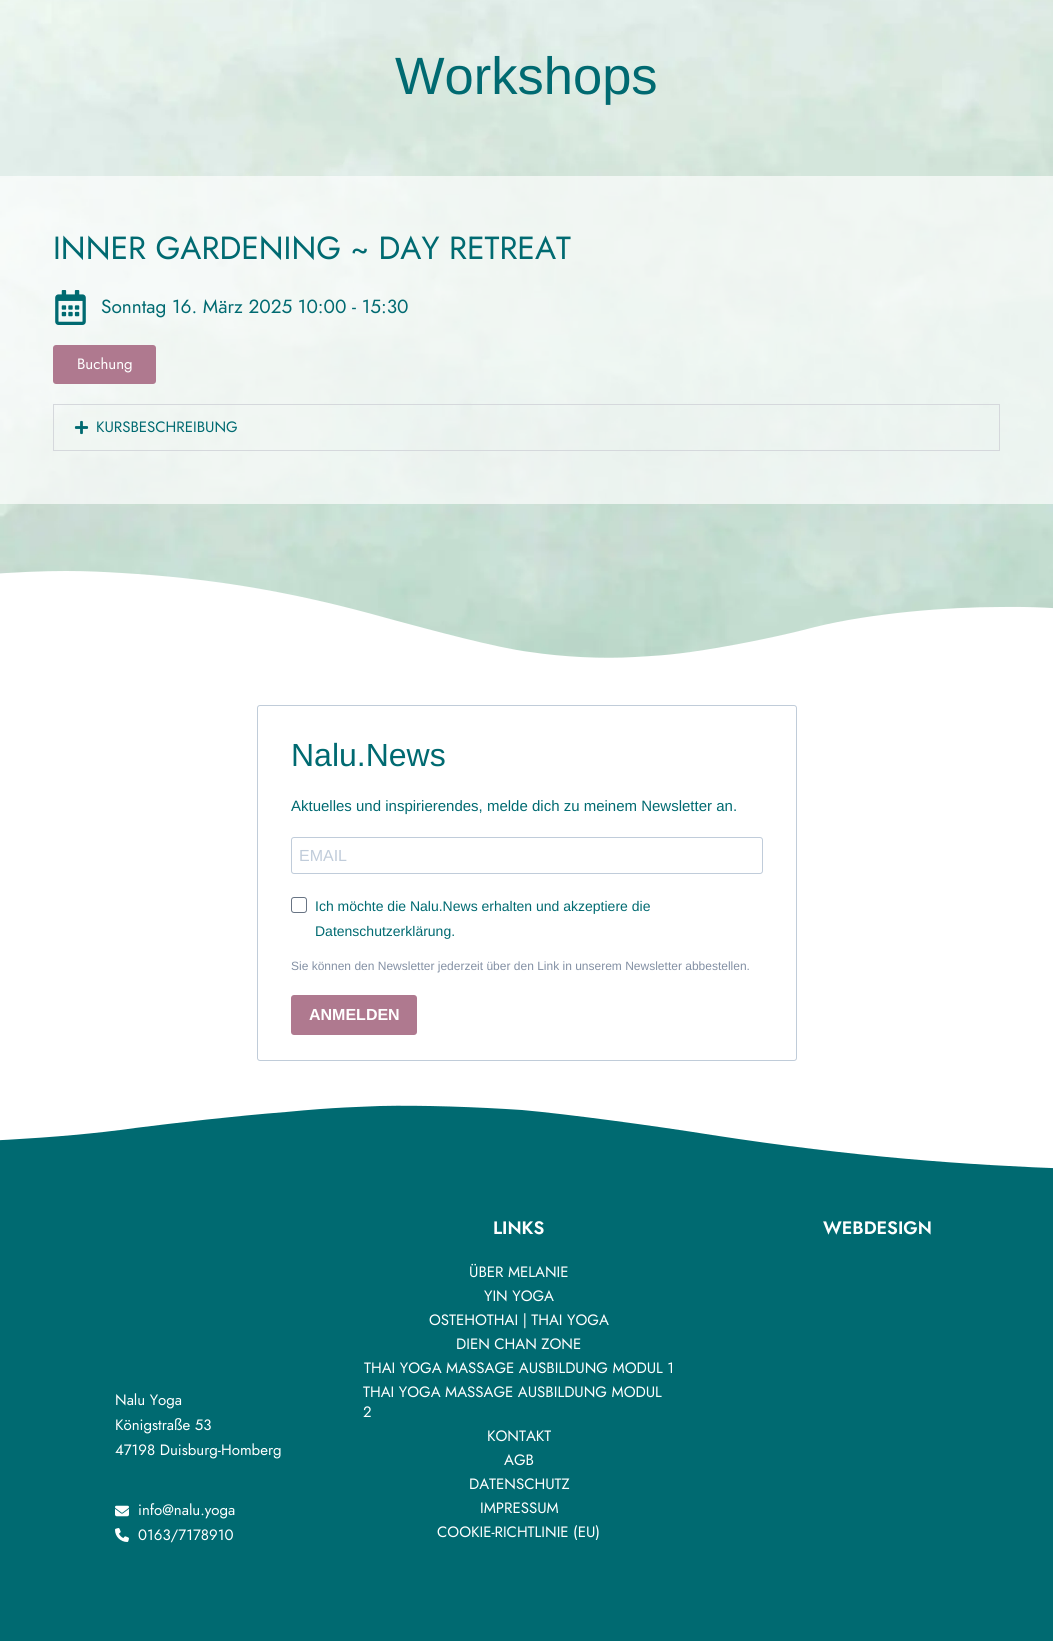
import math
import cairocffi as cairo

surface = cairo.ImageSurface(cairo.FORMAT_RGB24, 1053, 1641)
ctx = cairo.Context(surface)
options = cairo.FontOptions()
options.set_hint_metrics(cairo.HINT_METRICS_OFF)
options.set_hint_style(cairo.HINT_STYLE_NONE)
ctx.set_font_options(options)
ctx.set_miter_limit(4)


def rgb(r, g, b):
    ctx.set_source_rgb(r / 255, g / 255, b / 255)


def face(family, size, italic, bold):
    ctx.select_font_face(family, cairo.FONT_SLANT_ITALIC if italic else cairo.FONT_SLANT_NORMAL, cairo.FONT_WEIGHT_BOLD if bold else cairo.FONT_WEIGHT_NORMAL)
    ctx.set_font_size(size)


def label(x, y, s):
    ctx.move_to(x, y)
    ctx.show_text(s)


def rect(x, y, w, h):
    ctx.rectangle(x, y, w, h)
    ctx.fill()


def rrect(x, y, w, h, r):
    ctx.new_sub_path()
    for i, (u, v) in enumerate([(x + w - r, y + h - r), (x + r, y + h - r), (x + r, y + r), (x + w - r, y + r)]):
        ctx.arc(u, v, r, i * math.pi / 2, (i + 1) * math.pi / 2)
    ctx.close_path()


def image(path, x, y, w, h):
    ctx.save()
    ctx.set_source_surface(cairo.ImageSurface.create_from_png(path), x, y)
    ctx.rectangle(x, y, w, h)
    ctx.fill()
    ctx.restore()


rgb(255, 255, 255)
ctx.paint()
image('image0.png', 0, 0, 1053, 658)
face('Liberation Sans', 52.5, 0, 0)
rgb(0, 106, 113)
label(395, 94, 'Workshops')
ctx.set_source_rgba(1, 1, 1, 0.67)
rect(0, 176, 1053, 328)
face('Jost', 32, 0, 0)
rgb(0, 106, 113)
label(53, 259, 'INNER GARDENING ~ DAY RETREAT')
image('image1.png', 55, 290, 31, 35)
face('Jost', 19, 0, 0)
label(101, 313, 'Sonntag 16. März 2025 10:00 - 15:30')
rgb(175, 121, 143)
rrect(53, 345, 103, 39, 3)
ctx.fill()
face('Jost', 15, 0, 0)
rgb(255, 255, 255)
label(77, 369, 'Buchung')
ctx.rectangle(53.5, 404.5, 946, 46)
rgb(213, 216, 220)
ctx.set_line_width(1)
ctx.stroke()
image('image2.png', 74, 420, 15, 15)
rgb(0, 106, 113)
label(96, 432, 'KURSBESCHREIBUNG')
rgb(255, 255, 255)
ctx.new_path()
ctx.move_to(635, 657)
ctx.curve_to(603, 659, 563, 657, 530, 652)
ctx.curve_to(497, 648, 431, 630, 390, 619)
ctx.curve_to(284, 589, 204, 578, 122, 573)
ctx.curve_to(89, 571, 54, 569, -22, 575)
ctx.curve_to(-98, 581, -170, 599, -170, 599)
ctx.line_to(-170, 663)
ctx.line_to(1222, 663)
ctx.line_to(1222, 635)
ctx.curve_to(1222, 635, 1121, 605, 1001, 607)
ctx.curve_to(947, 607, 872, 613, 815, 627)
ctx.curve_to(785, 635, 742, 644, 704, 650)
ctx.curve_to(666, 656, 649, 656, 635, 657)
ctx.close_path()
ctx.fill()
rrect(257.5, 705.5, 539, 355, 2.5)
rgb(192, 204, 217)
ctx.stroke()
face('Liberation Sans', 32, 0, 0)
rgb(0, 106, 113)
label(291, 766, 'Nalu.News')
face('Liberation Sans', 15, 0, 0)
label(291, 811, 'Aktuelles und inspirierendes, melde dich zu meinem Newsletter an.')
rrect(291.5, 837.5, 471, 36, 2.5)
rgb(192, 204, 218)
ctx.stroke()
face('Liberation Sans', 16, 0, 0)
label(299, 861, 'EMAIL')
rrect(291.5, 897.5, 15, 15, 2.5)
rgb(104, 116, 132)
ctx.stroke()
face('Liberation Sans', 14, 0, 0)
rgb(0, 106, 113)
label(315, 911, 'Ich möchte die Nalu.News erhalten und akzeptiere die')
label(315, 936, 'Datenschutzerklärung.')
face('Liberation Sans', 12, 0, 0)
rgb(131, 144, 164)
label(291, 970, 'Sie können den Newsletter jederzeit über den Link in unserem Newsletter abbestellen.')
rgb(175, 121, 143)
rrect(291, 995, 126, 40, 3)
ctx.fill()
face('Liberation Sans', 16, 0, 1)
rgb(255, 255, 255)
label(309, 1020, 'ANMELDEN')
rgb(0, 106, 113)
rect(0, 1105, 1053, 536)
ctx.save()
ctx.rectangle(0, 1103, 1053, 68)
ctx.clip()
rgb(255, 255, 255)
ctx.new_path()
ctx.move_to(380, 1106)
ctx.curve_to(422, 1105, 477, 1107, 522, 1110)
ctx.curve_to(567, 1114, 656, 1126, 712, 1135)
ctx.curve_to(855, 1157, 964, 1165, 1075, 1169)
ctx.curve_to(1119, 1171, 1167, 1171, 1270, 1167)
ctx.curve_to(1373, 1163, 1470, 1150, 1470, 1150)
ctx.line_to(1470, 1102)
ctx.line_to(-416, 1102)
ctx.line_to(-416, 1123)
ctx.curve_to(-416, 1123, -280, 1145, -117, 1144)
ctx.curve_to(-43, 1143, 58, 1139, 135, 1128)
ctx.curve_to(175, 1123, 234, 1116, 286, 1112)
ctx.curve_to(337, 1107, 360, 1107, 380, 1106)
ctx.close_path()
ctx.fill()
ctx.restore()
face('Jost SemiBold', 18, 0, 0)
rgb(255, 255, 255)
label(493, 1234, 'LINKS')
face('Jost', 15, 0, 0)
label(469, 1277, 'ÜBER MELANIE')
label(484, 1301, 'YIN YOGA')
label(429, 1325, 'OSTEHOTHAI | THAI YOGA')
label(456, 1349, 'DIEN CHAN ZONE')
label(364, 1373, 'THAI YOGA MASSAGE AUSBILDUNG MODUL 1')
label(363, 1397, 'THAI YOGA MASSAGE AUSBILDUNG MODUL')
label(363, 1417, '2')
label(487, 1441, 'KONTAKT')
label(504, 1465, 'AGB')
label(469, 1489, 'DATENSCHUTZ')
label(480, 1513, 'IMPRESSUM')
label(437, 1537, 'COOKIE-RICHTLINIE (EU)')
face('Jost SemiBold', 18, 0, 0)
label(823, 1234, 'WEBDESIGN')
face('Jost', 15, 0, 0)
label(115, 1405, 'Nalu Yoga')
label(115, 1430, 'Königstraße 53')
label(115, 1455, '47198 Duisburg-Homberg')
image('image3.png', 115, 1505, 14, 12)
label(138, 1515, 'info@nalu.yoga')
image('image4.png', 115, 1528, 14, 14)
label(138, 1540, '0163/7178910')
surface.write_to_png('render.png')
